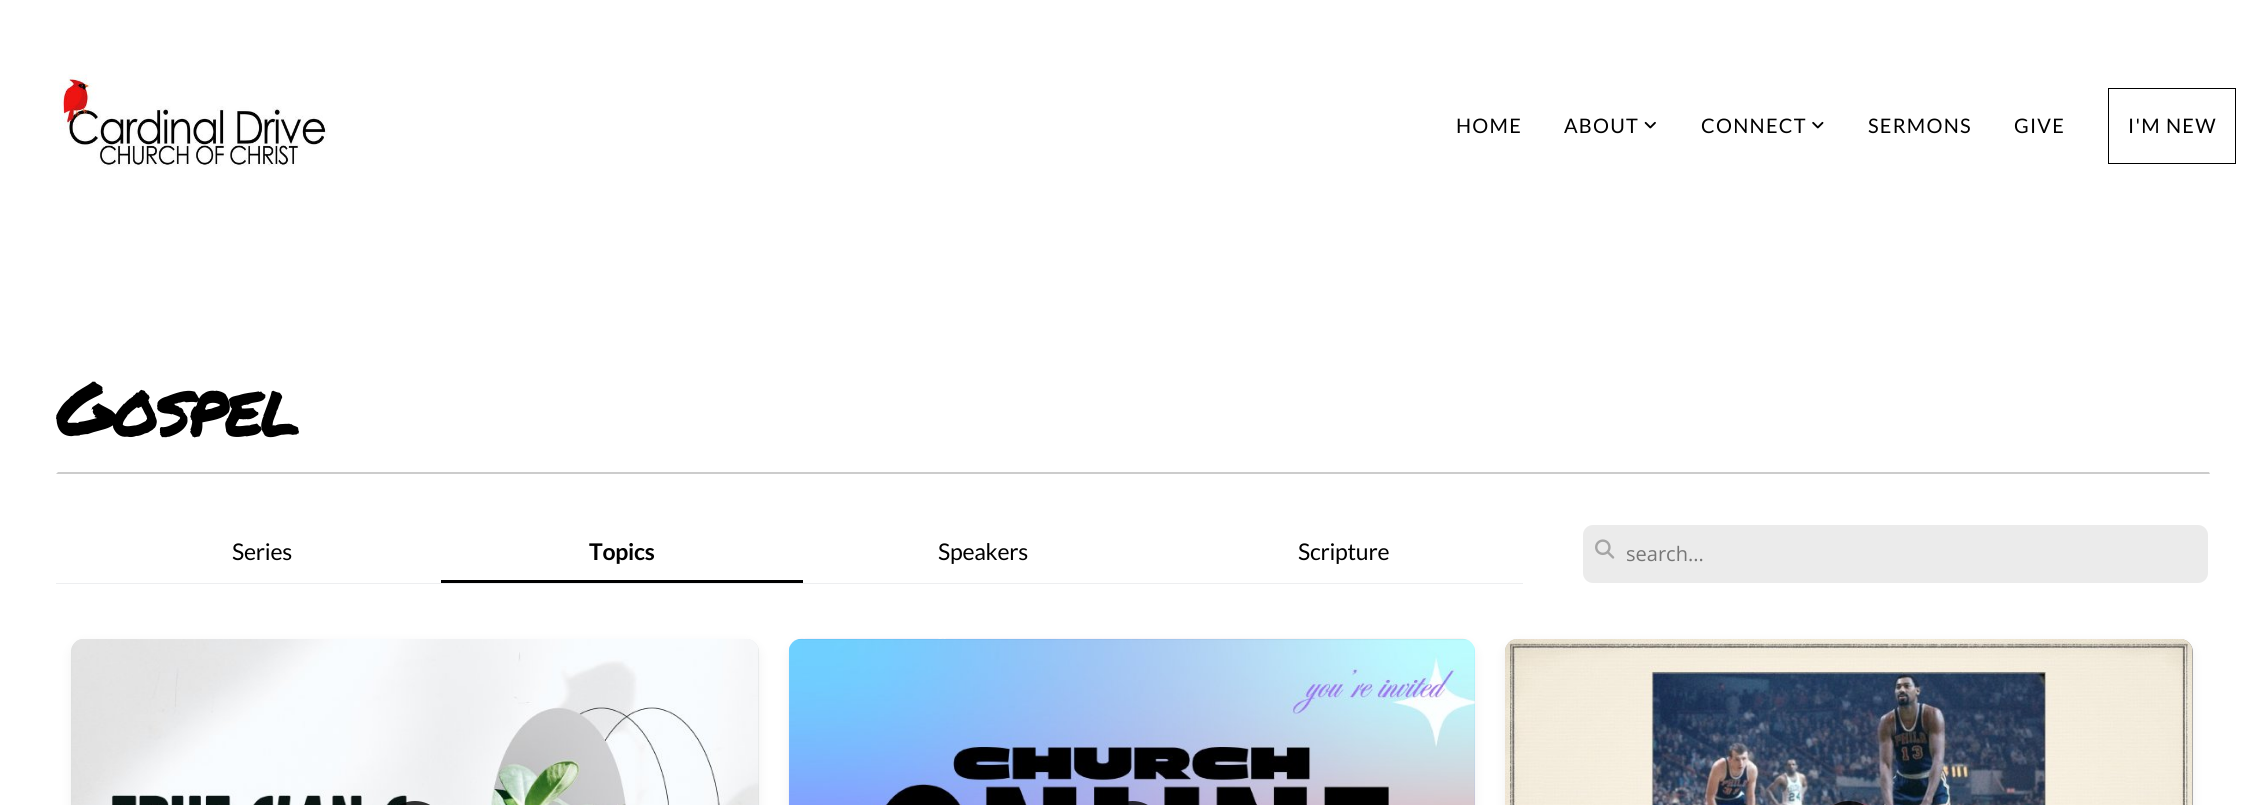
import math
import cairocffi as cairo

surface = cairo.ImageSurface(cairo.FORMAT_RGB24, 2263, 805)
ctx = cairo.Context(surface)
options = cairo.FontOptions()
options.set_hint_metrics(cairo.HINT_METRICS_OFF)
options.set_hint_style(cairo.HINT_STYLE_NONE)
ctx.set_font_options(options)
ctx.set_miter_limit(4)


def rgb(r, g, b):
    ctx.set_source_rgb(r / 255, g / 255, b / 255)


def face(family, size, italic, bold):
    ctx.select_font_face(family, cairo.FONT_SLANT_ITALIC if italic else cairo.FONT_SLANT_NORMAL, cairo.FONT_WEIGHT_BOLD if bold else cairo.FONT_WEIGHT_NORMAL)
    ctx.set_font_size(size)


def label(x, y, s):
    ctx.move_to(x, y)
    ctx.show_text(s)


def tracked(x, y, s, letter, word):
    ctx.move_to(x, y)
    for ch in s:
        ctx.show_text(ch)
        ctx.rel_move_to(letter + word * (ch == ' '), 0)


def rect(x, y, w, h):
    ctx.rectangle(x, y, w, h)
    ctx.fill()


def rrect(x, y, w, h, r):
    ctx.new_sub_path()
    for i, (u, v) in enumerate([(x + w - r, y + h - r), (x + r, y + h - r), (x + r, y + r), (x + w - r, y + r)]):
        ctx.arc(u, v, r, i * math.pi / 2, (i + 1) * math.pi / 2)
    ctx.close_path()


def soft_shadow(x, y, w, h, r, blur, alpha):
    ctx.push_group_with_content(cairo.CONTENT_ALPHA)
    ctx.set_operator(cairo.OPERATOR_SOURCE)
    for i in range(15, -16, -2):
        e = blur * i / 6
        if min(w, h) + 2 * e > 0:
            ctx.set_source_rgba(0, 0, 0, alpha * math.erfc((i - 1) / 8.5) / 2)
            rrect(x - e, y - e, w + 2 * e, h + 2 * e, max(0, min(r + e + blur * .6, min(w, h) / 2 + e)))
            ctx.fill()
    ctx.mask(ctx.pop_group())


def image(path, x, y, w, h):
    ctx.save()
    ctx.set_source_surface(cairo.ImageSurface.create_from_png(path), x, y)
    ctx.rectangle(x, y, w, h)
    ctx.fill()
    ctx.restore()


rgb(255, 255, 255)
ctx.paint()
image('image0.png', 59, 74, 269, 93)
face('Lato', 20, 0, 0)
rgb(0, 0, 0)
tracked(1456, 133, 'HOME', 1.25, 0)
tracked(1564, 133, 'ABOUT', 1.25, 0)
image('image1.png', 1644, 121, 12, 8)
tracked(1701, 133, 'CONNECT', 1.25, 0)
image('image2.png', 1812, 121, 12, 8)
tracked(1868, 133, 'SERMONS', 1.25, 0)
tracked(2014, 133, 'GIVE', 1.25, 0)
ctx.rectangle(2108.5, 88.5, 127, 75)
ctx.set_line_width(1)
ctx.stroke()
tracked(2128, 133, 'I\'M NEW', 1.25, 0)
face('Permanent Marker', 75, 0, 0)
tracked(56, 436, 'Gospel', -3, 0)
rgb(204, 204, 204)
ctx.new_path()
ctx.move_to(2210, 474)
ctx.line_to(56, 474)
ctx.line_to(58, 472)
ctx.line_to(2209, 472)
ctx.close_path()
ctx.fill()
rgb(237, 238, 240)
rect(56, 583, 1467, 1)
face('Lato', 23, 0, 0)
rgb(0, 0, 0)
tracked(232, 560, 'Series', -0.25, 0)
rect(441, 580, 362, 3)
face('Lato', 23, 0, 1)
tracked(589, 560, 'Topics', -0.25, 0)
face('Lato', 23, 0, 0)
tracked(938, 560, 'Speakers', -0.25, 0)
tracked(1298, 560, 'Scripture', -0.25, 0)
rgb(235, 235, 235)
rrect(1583, 525, 625, 58, 10)
ctx.fill()
image('image3.png', 1595, 539, 20, 20)
face('Open Sans', 20, 0, 0)
rgb(118, 118, 118)
label(1626, 561, 'search...')
rgb(0, 0, 0)
soft_shadow(71, 643, 688, 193, 13, 6, 0.06)
rgb(218, 223, 220)
rrect(71, 639, 688, 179, 13)
ctx.fill()
image('image4.png', 71, 639, 688, 166)
ctx.set_source_rgba(0, 0, 0, 0.8)
rrect(384, 801, 62, 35, 31)
ctx.fill()
rgb(0, 0, 0)
soft_shadow(789, 643, 686, 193, 13, 6, 0.06)
image('image5.png', 788, 638, 687, 167)
ctx.set_source_rgba(0, 0, 0, 0.8)
rrect(1101, 801, 63, 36, 31.5)
ctx.fill()
rgb(0, 0, 0)
soft_shadow(1505, 643, 688, 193, 13, 6, 0.06)
rgb(149, 149, 152)
rrect(1505, 639, 688, 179, 13)
ctx.fill()
image('image6.png', 1505, 639, 688, 166)
ctx.set_source_rgba(0, 0, 0, 0.8)
rrect(1818, 801, 62, 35, 31)
ctx.fill()
surface.write_to_png('render.png')
